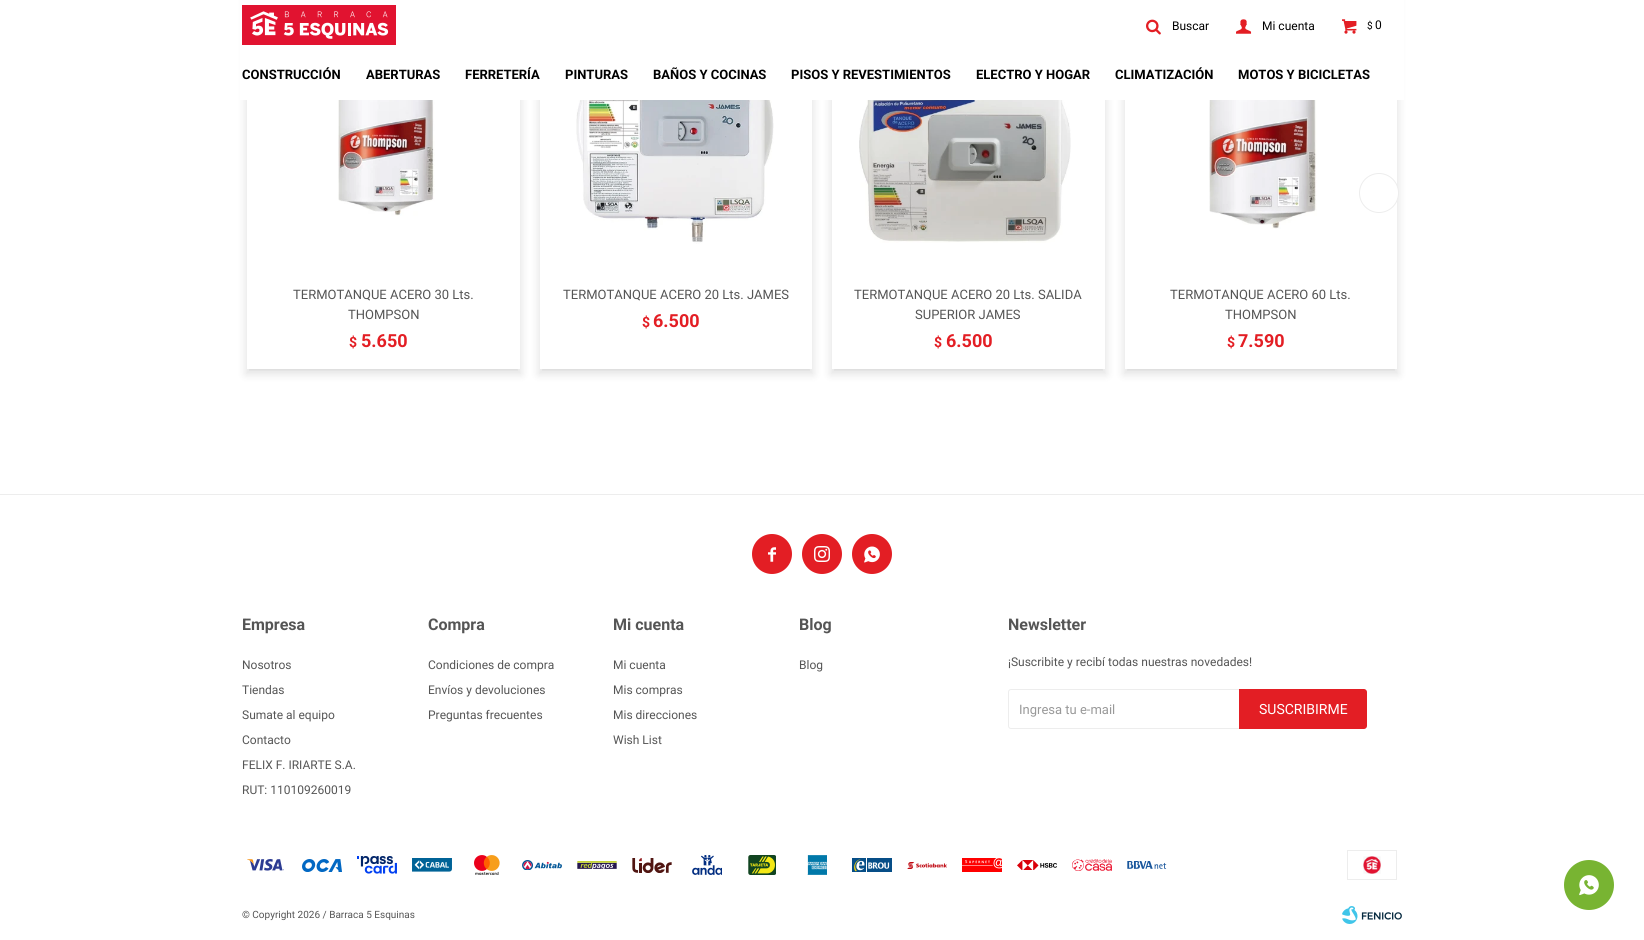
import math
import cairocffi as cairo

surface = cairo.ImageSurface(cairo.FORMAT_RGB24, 1644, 940)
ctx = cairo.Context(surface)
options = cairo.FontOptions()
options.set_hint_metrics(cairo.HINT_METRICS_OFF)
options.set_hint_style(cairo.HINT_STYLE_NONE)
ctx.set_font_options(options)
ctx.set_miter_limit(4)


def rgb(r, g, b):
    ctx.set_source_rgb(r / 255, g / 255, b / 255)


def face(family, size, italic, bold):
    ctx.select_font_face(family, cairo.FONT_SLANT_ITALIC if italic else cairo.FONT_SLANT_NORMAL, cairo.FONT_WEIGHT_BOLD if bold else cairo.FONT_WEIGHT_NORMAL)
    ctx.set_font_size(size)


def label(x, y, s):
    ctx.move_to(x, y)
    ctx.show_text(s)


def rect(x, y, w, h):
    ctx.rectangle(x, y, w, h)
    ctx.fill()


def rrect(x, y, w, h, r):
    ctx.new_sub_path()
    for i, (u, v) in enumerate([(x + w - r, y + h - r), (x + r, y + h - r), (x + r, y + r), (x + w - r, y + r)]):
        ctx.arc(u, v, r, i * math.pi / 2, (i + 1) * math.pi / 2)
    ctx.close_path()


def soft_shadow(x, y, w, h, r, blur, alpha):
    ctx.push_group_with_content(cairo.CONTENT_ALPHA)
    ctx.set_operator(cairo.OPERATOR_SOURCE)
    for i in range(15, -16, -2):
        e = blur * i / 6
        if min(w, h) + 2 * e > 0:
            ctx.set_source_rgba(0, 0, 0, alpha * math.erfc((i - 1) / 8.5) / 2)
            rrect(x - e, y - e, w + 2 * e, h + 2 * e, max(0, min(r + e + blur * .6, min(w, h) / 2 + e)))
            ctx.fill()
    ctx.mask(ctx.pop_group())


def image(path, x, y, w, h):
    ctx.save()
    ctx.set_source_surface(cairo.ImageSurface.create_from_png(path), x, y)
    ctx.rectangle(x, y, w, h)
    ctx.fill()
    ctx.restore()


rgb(255, 255, 255)
ctx.paint()
image('image4.png', 338, 100, 97, 116)
ctx.save()
ctx.rectangle(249, 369, 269, 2)
ctx.clip()
rgb(0, 0, 0)
soft_shadow(249, 2, 269, 367, 0, 2, 0.1)
ctx.restore()
ctx.save()
ctx.set_fill_rule(cairo.FILL_RULE_EVEN_ODD)
ctx.new_path()
ctx.move_to(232, 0)
ctx.line_to(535, 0)
ctx.line_to(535, 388)
ctx.line_to(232, 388)
ctx.close_path()
ctx.move_to(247, -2)
ctx.line_to(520, -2)
ctx.line_to(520, 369)
ctx.line_to(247, 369)
ctx.close_path()
ctx.clip()
rgb(0, 0, 0)
soft_shadow(245, 0, 277, 375, 0, 4, 0.1)
ctx.restore()
image('image5.png', 576, 100, 198, 144)
ctx.save()
ctx.rectangle(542, 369, 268, 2)
ctx.clip()
rgb(0, 0, 0)
soft_shadow(542, 2, 268, 367, 0, 2, 0.1)
ctx.restore()
ctx.save()
ctx.set_fill_rule(cairo.FILL_RULE_EVEN_ODD)
ctx.new_path()
ctx.move_to(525, 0)
ctx.line_to(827, 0)
ctx.line_to(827, 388)
ctx.line_to(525, 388)
ctx.close_path()
ctx.move_to(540, -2)
ctx.line_to(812, -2)
ctx.line_to(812, 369)
ctx.line_to(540, 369)
ctx.close_path()
ctx.clip()
rgb(0, 0, 0)
soft_shadow(538, 0, 276, 375, 0, 4, 0.1)
ctx.restore()
image('image6.png', 859, 100, 212, 143)
ctx.save()
ctx.rectangle(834, 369, 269, 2)
ctx.clip()
rgb(0, 0, 0)
soft_shadow(834, 2, 269, 367, 0, 2, 0.1)
ctx.restore()
ctx.save()
ctx.set_fill_rule(cairo.FILL_RULE_EVEN_ODD)
ctx.new_path()
ctx.move_to(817, 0)
ctx.line_to(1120, 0)
ctx.line_to(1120, 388)
ctx.line_to(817, 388)
ctx.close_path()
ctx.move_to(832, -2)
ctx.line_to(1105, -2)
ctx.line_to(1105, 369)
ctx.line_to(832, 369)
ctx.close_path()
ctx.clip()
rgb(0, 0, 0)
soft_shadow(830, 0, 277, 375, 0, 4, 0.1)
ctx.restore()
image('image7.png', 1209, 100, 108, 129)
ctx.save()
ctx.rectangle(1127, 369, 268, 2)
ctx.clip()
rgb(0, 0, 0)
soft_shadow(1127, 2, 268, 367, 0, 2, 0.1)
ctx.restore()
ctx.save()
ctx.set_fill_rule(cairo.FILL_RULE_EVEN_ODD)
ctx.new_path()
ctx.move_to(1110, 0)
ctx.line_to(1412, 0)
ctx.line_to(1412, 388)
ctx.line_to(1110, 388)
ctx.close_path()
ctx.move_to(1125, -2)
ctx.line_to(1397, -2)
ctx.line_to(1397, 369)
ctx.line_to(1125, 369)
ctx.close_path()
ctx.clip()
rgb(0, 0, 0)
soft_shadow(1123, 0, 276, 375, 0, 4, 0.1)
ctx.restore()
rgb(255, 255, 255)
rect(240, 0, 1164, 100)
image('image0.png', 242, 5, 154, 40)
image('image1.png', 1146, 19, 15, 16)
face('Roboto', 12, 0, 0)
rgb(0, 0, 0)
label(1172, 30, 'Buscar')
image('image2.png', 1236, 19, 16, 15)
label(1262, 30, 'Mi cuenta')
image('image3.png', 1342, 19, 15, 15)
face('Roboto', 10, 0, 0)
label(1367, 29, '$')
face('Roboto', 12, 0, 0)
label(1375, 29, '0')
face('Roboto', 13, 0, 1)
label(242, 79, 'CONSTRUCCIÓN')
label(366, 79, 'ABERTURAS')
label(465, 79, 'FERRETERÍA')
label(565, 79, 'PINTURAS')
label(653, 79, 'BAÑOS Y COCINAS')
label(791, 79, 'PISOS Y REVESTIMIENTOS')
label(976, 79, 'ELECTRO Y HOGAR')
label(1115, 79, 'CLIMATIZACIÓN')
label(1238, 79, 'MOTOS Y BICICLETAS')
rgb(255, 255, 255)
ctx.new_path()
ctx.arc(1379, 193, 19.5, 0, 2 * math.pi)
ctx.fill_preserve()
rgb(237, 237, 237)
ctx.set_line_width(1)
ctx.stroke()
face('Roboto', 13, 0, 0)
rgb(85, 85, 85)
label(293, 299, 'TERMOTANQUE ACERO 30 Lts.')
label(348, 319, 'THOMPSON')
face('Roboto', 14, 0, 1)
rgb(227, 30, 36)
label(349, 347, '$')
face('Roboto', 18, 0, 1)
label(361, 347, '5.650')
face('Roboto', 13, 0, 0)
rgb(85, 85, 85)
label(563, 299, 'TERMOTANQUE ACERO 20 Lts. JAMES')
face('Roboto', 14, 0, 1)
rgb(227, 30, 36)
label(642, 327, '$')
face('Roboto', 18, 0, 1)
label(653, 327, '6.500')
face('Roboto', 13, 0, 0)
rgb(85, 85, 85)
label(854, 299, 'TERMOTANQUE ACERO 20 Lts. SALIDA')
label(915, 319, 'SUPERIOR JAMES')
face('Roboto', 14, 0, 1)
rgb(227, 30, 36)
label(934, 347, '$')
face('Roboto', 18, 0, 1)
label(946, 347, '6.500')
face('Roboto', 13, 0, 0)
rgb(85, 85, 85)
label(1170, 299, 'TERMOTANQUE ACERO 60 Lts.')
label(1225, 319, 'THOMPSON')
face('Roboto', 14, 0, 1)
rgb(227, 30, 36)
label(1227, 347, '$')
face('Roboto', 18, 0, 1)
label(1238, 347, '7.590')
rgb(237, 237, 237)
rect(0, 494, 1644, 1)
rgb(227, 30, 36)
ctx.new_path()
ctx.arc(772, 554, 20, 0, 2 * math.pi)
ctx.fill()
image('image8.png', 768, 547, 8, 15)
ctx.arc(822, 554, 20, 0, 2 * math.pi)
ctx.fill()
image('image9.png', 814, 546, 16, 16)
ctx.arc(872, 554, 20, 0, 2 * math.pi)
ctx.fill()
image('image10.png', 864, 546, 16, 17)
face('Roboto', 16, 0, 1)
rgb(85, 85, 85)
label(242, 630, 'Empresa')
face('Roboto', 12, 0, 0)
label(242, 669, 'Nosotros')
label(242, 694, 'Tiendas')
label(242, 719, 'Sumate al equipo')
label(242, 744, 'Contacto')
label(242, 769, 'FELIX F. IRIARTE S.A.')
label(242, 794, 'RUT: 110109260019')
face('Roboto', 16, 0, 1)
label(428, 630, 'Compra')
face('Roboto', 12, 0, 0)
label(428, 669, 'Condiciones de compra')
label(428, 694, 'Envíos y devoluciones')
label(428, 719, 'Preguntas frecuentes')
face('Roboto', 16, 0, 1)
label(613, 630, 'Mi cuenta')
face('Roboto', 12, 0, 0)
label(613, 669, 'Mi cuenta')
label(613, 694, 'Mis compras')
label(613, 719, 'Mis direcciones')
label(613, 744, 'Wish List')
face('Roboto', 16, 0, 1)
label(799, 630, 'Blog')
face('Roboto', 12, 0, 0)
label(799, 669, 'Blog')
face('Roboto', 16, 0, 1)
label(1008, 630, 'Newsletter')
face('Roboto', 12, 0, 0)
label(1008, 666, '¡Suscribite y recibí todas nuestras novedades!')
rrect(1008.5, 689.5, 358, 39, 2.5)
rgb(237, 237, 237)
ctx.stroke()
face('Roboto', 13, 0, 0)
rgb(153, 153, 153)
label(1019, 714, 'Ingresa tu e-mail')
rgb(227, 30, 36)
ctx.new_path()
ctx.move_to(1239, 689)
ctx.line_to(1364, 689)
ctx.curve_to(1365.5, 689, 1367, 690.5, 1367, 692)
ctx.line_to(1367, 726)
ctx.curve_to(1367, 727.5, 1365.5, 729, 1364, 729)
ctx.line_to(1239, 729)
ctx.close_path()
ctx.fill()
face('Roboto', 14, 0, 0)
rgb(255, 255, 255)
label(1259, 714, 'SUSCRIBIRME')
image('image11.png', 247, 859, 37, 12)
image('image12.png', 302, 859, 40, 13)
image('image13.png', 357, 856, 40, 18)
image('image14.png', 412, 858, 40, 14)
image('image15.png', 474, 855, 26, 20)
image('image16.png', 522, 860, 40, 10)
image('image17.png', 577, 861, 40, 8)
image('image18.png', 632, 858, 40, 15)
image('image19.png', 692, 855, 30, 20)
image('image20.png', 748, 855, 28, 20)
image('image21.png', 807, 855, 20, 20)
image('image22.png', 852, 858, 40, 14)
image('image23.png', 907, 862, 40, 7)
image('image24.png', 962, 858, 40, 14)
image('image25.png', 1017, 860, 40, 10)
image('image26.png', 1072, 859, 40, 12)
image('image27.png', 1127, 861, 40, 8)
ctx.rectangle(1347.5, 850.5, 49, 29)
rgb(237, 237, 237)
ctx.stroke()
image('image28.png', 1363, 856, 18, 18)
face('Roboto', 10, 0, 0)
rgb(85, 85, 85)
label(242, 918, '© Copyright 2026 / Barraca 5 Esquinas')
image('image29.png', 1342, 906, 60, 18)
rgb(120, 180, 50)
ctx.arc(1589, 885, 25, 0, 2 * math.pi)
ctx.fill()
image('image30.png', 1579, 875, 20, 21)
surface.write_to_png('render.png')
